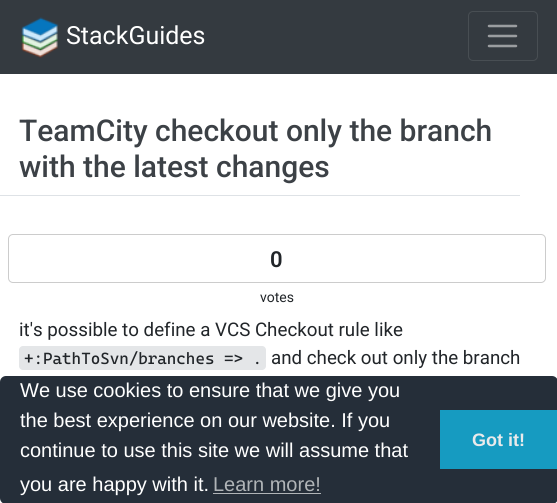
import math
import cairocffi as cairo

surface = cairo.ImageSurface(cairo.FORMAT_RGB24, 557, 503)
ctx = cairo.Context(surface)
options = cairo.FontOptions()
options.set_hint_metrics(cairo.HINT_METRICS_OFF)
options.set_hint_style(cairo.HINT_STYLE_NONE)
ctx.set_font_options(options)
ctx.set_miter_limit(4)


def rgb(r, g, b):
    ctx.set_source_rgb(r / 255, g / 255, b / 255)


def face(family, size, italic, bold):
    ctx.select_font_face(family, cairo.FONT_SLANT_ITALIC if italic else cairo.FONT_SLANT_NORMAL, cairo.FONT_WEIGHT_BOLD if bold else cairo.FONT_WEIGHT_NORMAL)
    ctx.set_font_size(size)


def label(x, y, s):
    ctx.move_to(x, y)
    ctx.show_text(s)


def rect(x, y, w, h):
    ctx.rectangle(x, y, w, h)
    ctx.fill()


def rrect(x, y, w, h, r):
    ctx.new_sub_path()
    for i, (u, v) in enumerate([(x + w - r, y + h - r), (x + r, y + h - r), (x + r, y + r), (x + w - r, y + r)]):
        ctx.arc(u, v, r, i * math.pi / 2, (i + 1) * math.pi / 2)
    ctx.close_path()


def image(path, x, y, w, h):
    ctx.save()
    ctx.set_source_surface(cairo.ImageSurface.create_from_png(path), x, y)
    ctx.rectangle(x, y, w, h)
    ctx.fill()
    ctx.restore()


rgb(255, 255, 255)
ctx.paint()
rgb(52, 58, 64)
rect(0, 0, 557, 74)
image('image0.png', 21, 17, 38, 41)
face('Roboto', 25, 0, 0)
rgb(255, 255, 255)
label(66, 44, 'StackGuides')
rrect(468.5, 11.5, 69, 49, 4.5)
rgb(72, 78, 83)
ctx.set_line_width(1)
ctx.stroke()
ctx.new_path()
ctx.move_to(489, 26)
ctx.line_to(516, 26)
ctx.move_to(489, 36)
ctx.line_to(516, 36)
ctx.move_to(489, 46)
ctx.line_to(516, 46)
rgb(154, 157, 160)
ctx.set_line_width(2.5)
ctx.set_line_cap(cairo.LINE_CAP_ROUND)
ctx.stroke()
rgb(222, 226, 230)
rect(0, 195, 520, 1)
face('Roboto Medium', 30, 0, 0)
rgb(60, 65, 70)
label(19, 141, 'TeamCity checkout only the branch')
label(19, 177, 'with the latest changes')
rrect(8.5, 234.5, 537, 48, 4.5)
rgb(204, 204, 204)
ctx.set_line_width(1)
ctx.set_line_cap(cairo.LINE_CAP_BUTT)
ctx.stroke()
face('Roboto SemiBold', 22, 0, 0)
rgb(33, 37, 41)
label(270, 267, '0')
face('Roboto', 14, 0, 0)
label(260, 302, 'votes')
face('Roboto', 18.75, 0, 0)
label(19, 336, 'it\'s possible to define a VCS Checkout rule like')
rgb(228, 230, 232)
rrect(19, 346, 247, 24, 4)
ctx.fill()
face('Cascadia Mono', 16.25, 0, 0)
rgb(33, 37, 41)
label(24, 364, '+:PathToSvn/branches => .')
face('Roboto', 18.75, 0, 0)
label(271, 364, 'and check out only the branch')
rgb(37, 46, 57)
rrect(0, 376, 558, 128, 6)
ctx.fill()
face('Liberation Sans', 20, 0, 0)
rgb(255, 255, 255)
label(20, 397, 'We use cookies to ensure that we give you')
label(20, 427, 'the best experience on our website. If you')
label(20, 457, 'continue to use this site we will assume that')
label(20, 491, 'you are happy with it.')
rgb(176, 180, 183)
label(213, 491, 'Learn more!')
rect(213, 493, 108, 1)
rgb(22, 155, 193)
rect(440, 410, 117, 59)
face('Liberation Sans', 18, 0, 1)
rgb(233, 234, 235)
label(472, 446, 'Got it!')
surface.write_to_png('render.png')
